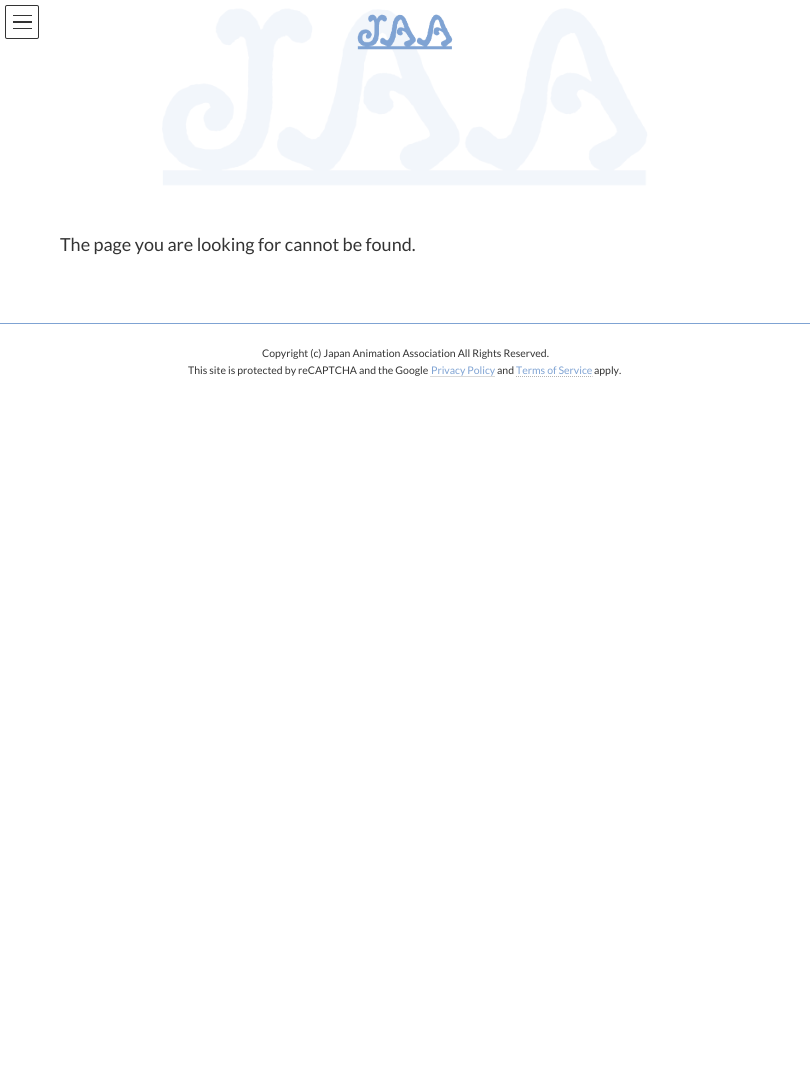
import math
import cairocffi as cairo

surface = cairo.ImageSurface(cairo.FORMAT_RGB24, 810, 1089)
ctx = cairo.Context(surface)
options = cairo.FontOptions()
options.set_hint_metrics(cairo.HINT_METRICS_OFF)
options.set_hint_style(cairo.HINT_STYLE_NONE)
ctx.set_font_options(options)
ctx.set_miter_limit(4)


def rgb(r, g, b):
    ctx.set_source_rgb(r / 255, g / 255, b / 255)


def face(family, size, italic, bold):
    ctx.select_font_face(family, cairo.FONT_SLANT_ITALIC if italic else cairo.FONT_SLANT_NORMAL, cairo.FONT_WEIGHT_BOLD if bold else cairo.FONT_WEIGHT_NORMAL)
    ctx.set_font_size(size)


def label(x, y, s):
    ctx.move_to(x, y)
    ctx.show_text(s)


def rect(x, y, w, h):
    ctx.rectangle(x, y, w, h)
    ctx.fill()


def rrect(x, y, w, h, r):
    ctx.new_sub_path()
    for i, (u, v) in enumerate([(x + w - r, y + h - r), (x + r, y + h - r), (x + r, y + r), (x + w - r, y + r)]):
        ctx.arc(u, v, r, i * math.pi / 2, (i + 1) * math.pi / 2)
    ctx.close_path()


def image(path, x, y, w, h):
    ctx.save()
    ctx.set_source_surface(cairo.ImageSurface.create_from_png(path), x, y)
    ctx.rectangle(x, y, w, h)
    ctx.fill()
    ctx.restore()


rgb(255, 255, 255)
ctx.paint()
rgb(51, 51, 51)
rect(13, 15, 19, 1)
rect(13, 21, 19, 2)
rect(13, 28, 19, 1)
rrect(5.5, 5.5, 33, 33, 1.5)
ctx.set_line_width(1)
ctx.stroke()
image('image0.png', 162, 8, 486, 178)
image('image1.png', 357, 14, 96, 36)
face('Lato', 18, 0, 0)
label(60, 251, 'The page you are looking for cannot be found.')
rgb(127, 163, 211)
rect(0, 323, 810, 1)
face('Lato', 10.5, 0, 0)
rgb(51, 51, 51)
label(262, 357, 'Copyright (c) Japan Animation Association All Rights Reserved.')
label(188, 374, 'This site is protected by reCAPTCHA and the Google')
rgb(127, 163, 211)
label(431, 374, 'Privacy Policy')
ctx.new_path()
ctx.move_to(430.5, 376.5)
ctx.line_to(495, 376.5)
rgb(179, 179, 179)
ctx.set_dash([1, 1])
ctx.stroke()
rgb(51, 51, 51)
label(497, 374, 'and')
rgb(127, 163, 211)
label(516, 374, 'Terms of Service')
ctx.new_path()
ctx.move_to(516, 376.5)
ctx.line_to(592.5, 376.5)
rgb(179, 179, 179)
ctx.stroke()
rgb(51, 51, 51)
label(594, 374, 'apply.')
surface.write_to_png('render.png')
